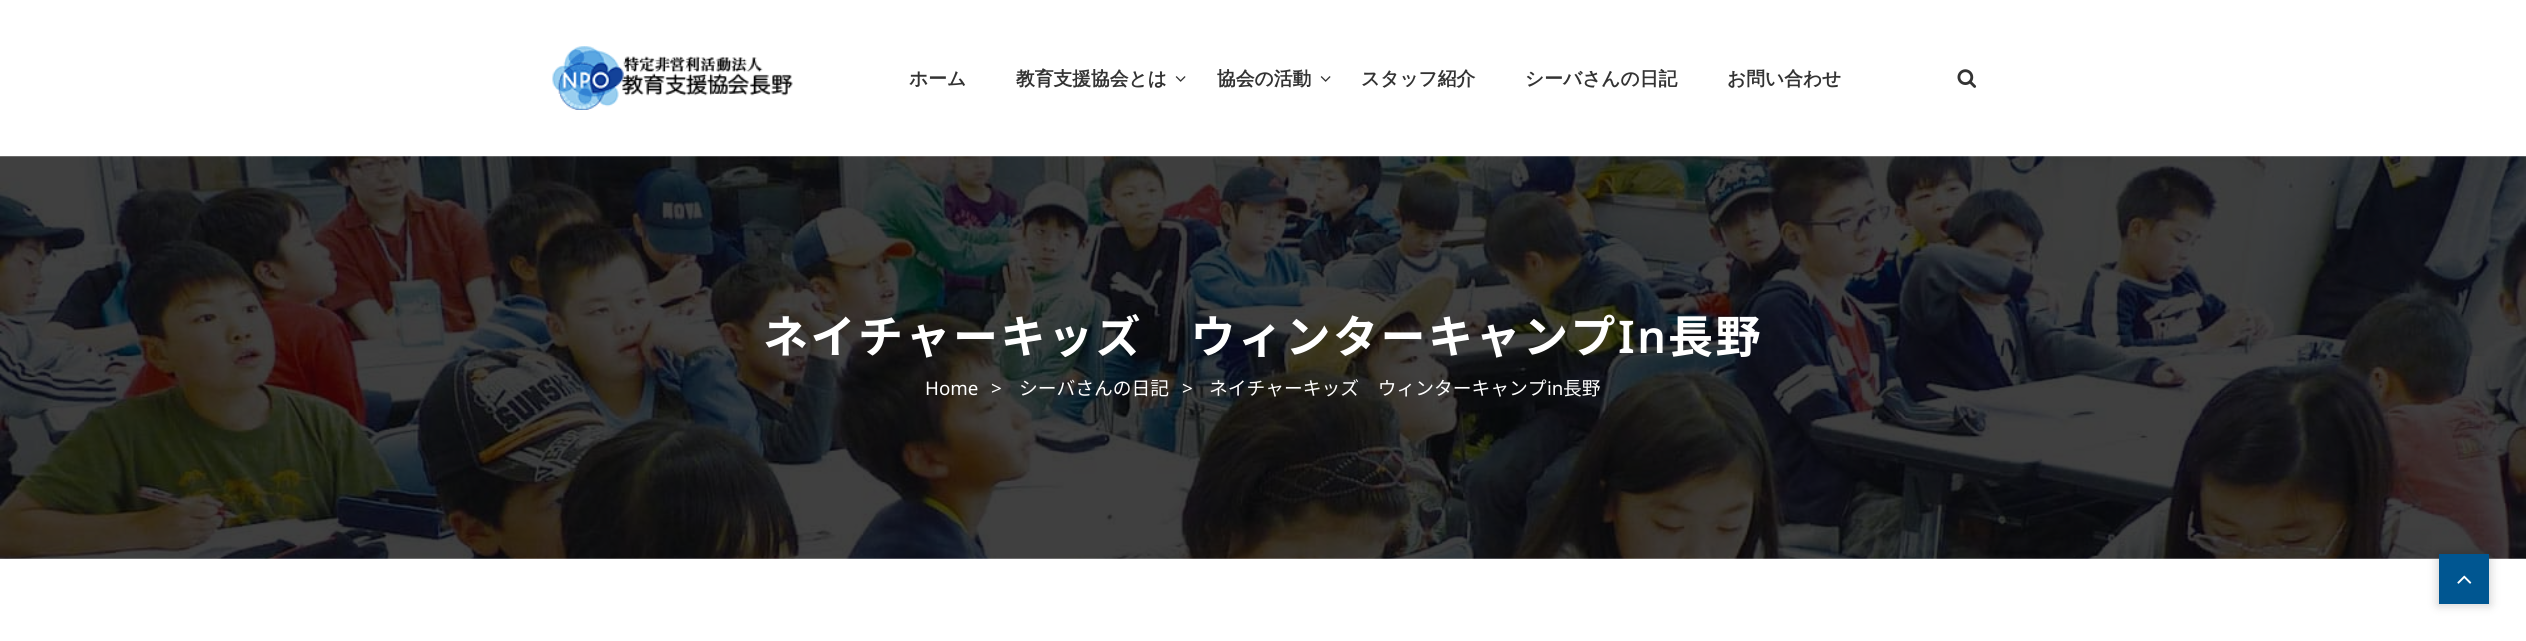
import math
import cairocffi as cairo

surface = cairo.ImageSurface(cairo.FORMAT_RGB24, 2526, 641)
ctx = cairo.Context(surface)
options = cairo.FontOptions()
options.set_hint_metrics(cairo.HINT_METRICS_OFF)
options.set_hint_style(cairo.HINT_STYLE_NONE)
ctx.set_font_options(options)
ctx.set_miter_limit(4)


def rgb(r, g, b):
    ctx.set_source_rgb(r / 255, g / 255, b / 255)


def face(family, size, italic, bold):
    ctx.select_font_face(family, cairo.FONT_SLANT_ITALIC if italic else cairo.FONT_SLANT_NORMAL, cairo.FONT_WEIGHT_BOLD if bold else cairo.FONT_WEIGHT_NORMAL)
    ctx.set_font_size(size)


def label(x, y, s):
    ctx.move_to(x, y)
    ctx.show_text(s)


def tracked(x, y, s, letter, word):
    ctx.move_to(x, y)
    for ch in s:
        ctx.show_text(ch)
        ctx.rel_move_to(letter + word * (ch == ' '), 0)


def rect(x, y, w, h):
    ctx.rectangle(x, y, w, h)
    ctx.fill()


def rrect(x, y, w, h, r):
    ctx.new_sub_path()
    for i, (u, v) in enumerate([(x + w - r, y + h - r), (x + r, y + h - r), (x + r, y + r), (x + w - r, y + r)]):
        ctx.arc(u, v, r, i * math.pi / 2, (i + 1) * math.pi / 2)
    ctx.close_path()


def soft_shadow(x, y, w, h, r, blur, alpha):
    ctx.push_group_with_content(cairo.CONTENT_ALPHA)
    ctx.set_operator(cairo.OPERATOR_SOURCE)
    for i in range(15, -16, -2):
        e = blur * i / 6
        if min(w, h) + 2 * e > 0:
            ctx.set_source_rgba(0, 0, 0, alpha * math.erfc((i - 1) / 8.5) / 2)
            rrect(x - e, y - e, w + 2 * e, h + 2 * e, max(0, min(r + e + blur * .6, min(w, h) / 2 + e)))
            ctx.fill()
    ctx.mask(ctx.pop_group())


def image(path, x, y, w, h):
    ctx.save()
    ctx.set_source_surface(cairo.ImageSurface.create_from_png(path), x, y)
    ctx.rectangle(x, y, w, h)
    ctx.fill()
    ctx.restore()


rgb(255, 255, 255)
ctx.paint()
ctx.save()
ctx.rectangle(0, 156, 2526, 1)
ctx.clip()
rgb(13, 13, 13)
soft_shadow(0, 1, 2526, 157, 0, 2, 0.1)
ctx.restore()
image('image0.png', 552, 46, 241, 64)
face('WenQuanYi Zen Hei', 18.75, 0, 1)
rgb(51, 51, 51)
label(909, 85, 'ホーム')
label(1016, 85, '教育支援協会とは')
image('image1.png', 1175, 76, 11, 6)
label(1217, 85, '協会の活動')
image('image1.png', 1320, 76, 11, 6)
label(1361, 85, 'スタッフ紹介')
label(1525, 85, 'シーバさんの日記')
label(1727, 85, 'お問い合わせ')
image('image2.png', 1957, 69, 20, 19)
image('image3.png', 0, 156, 2526, 403)
face('Noto Sans CJK JP', 45, 0, 1)
rgb(255, 255, 255)
tracked(763, 353, 'ネイチャーキッズ　ウィンターキャンプ', 2.5, 0)
face('Noto Sans SemiBold', 45, 0, 0)
tracked(1618, 353, 'In', 2.5, 0)
face('Noto Sans CJK JP', 45, 0, 1)
tracked(1668, 353, '長野', 2.5, 0)
face('Noto Sans', 18.75, 0, 0)
label(925, 395, 'Home')
label(991, 395, '>')
face('Noto Sans CJK JP', 18.75, 0, 0)
label(1019, 395, 'シーバさんの日記')
face('Noto Sans', 18.75, 0, 0)
label(1182, 395, '>')
face('Noto Sans CJK JP', 18.75, 0, 0)
label(1209, 395, 'ネイチャーキッズ　ウィンターキャンプ')
face('Noto Sans', 18.75, 0, 0)
label(1547, 395, 'in')
face('Noto Sans CJK JP', 18.75, 0, 0)
label(1563, 395, '長野')
rgb(0, 0, 0)
soft_shadow(2438, 553, 52, 52, 0, 5, 0.2)
rgb(0, 86, 145)
rect(2439, 554, 50, 50)
image('image4.png', 2457, 575, 15, 9)
surface.write_to_png('render.png')
